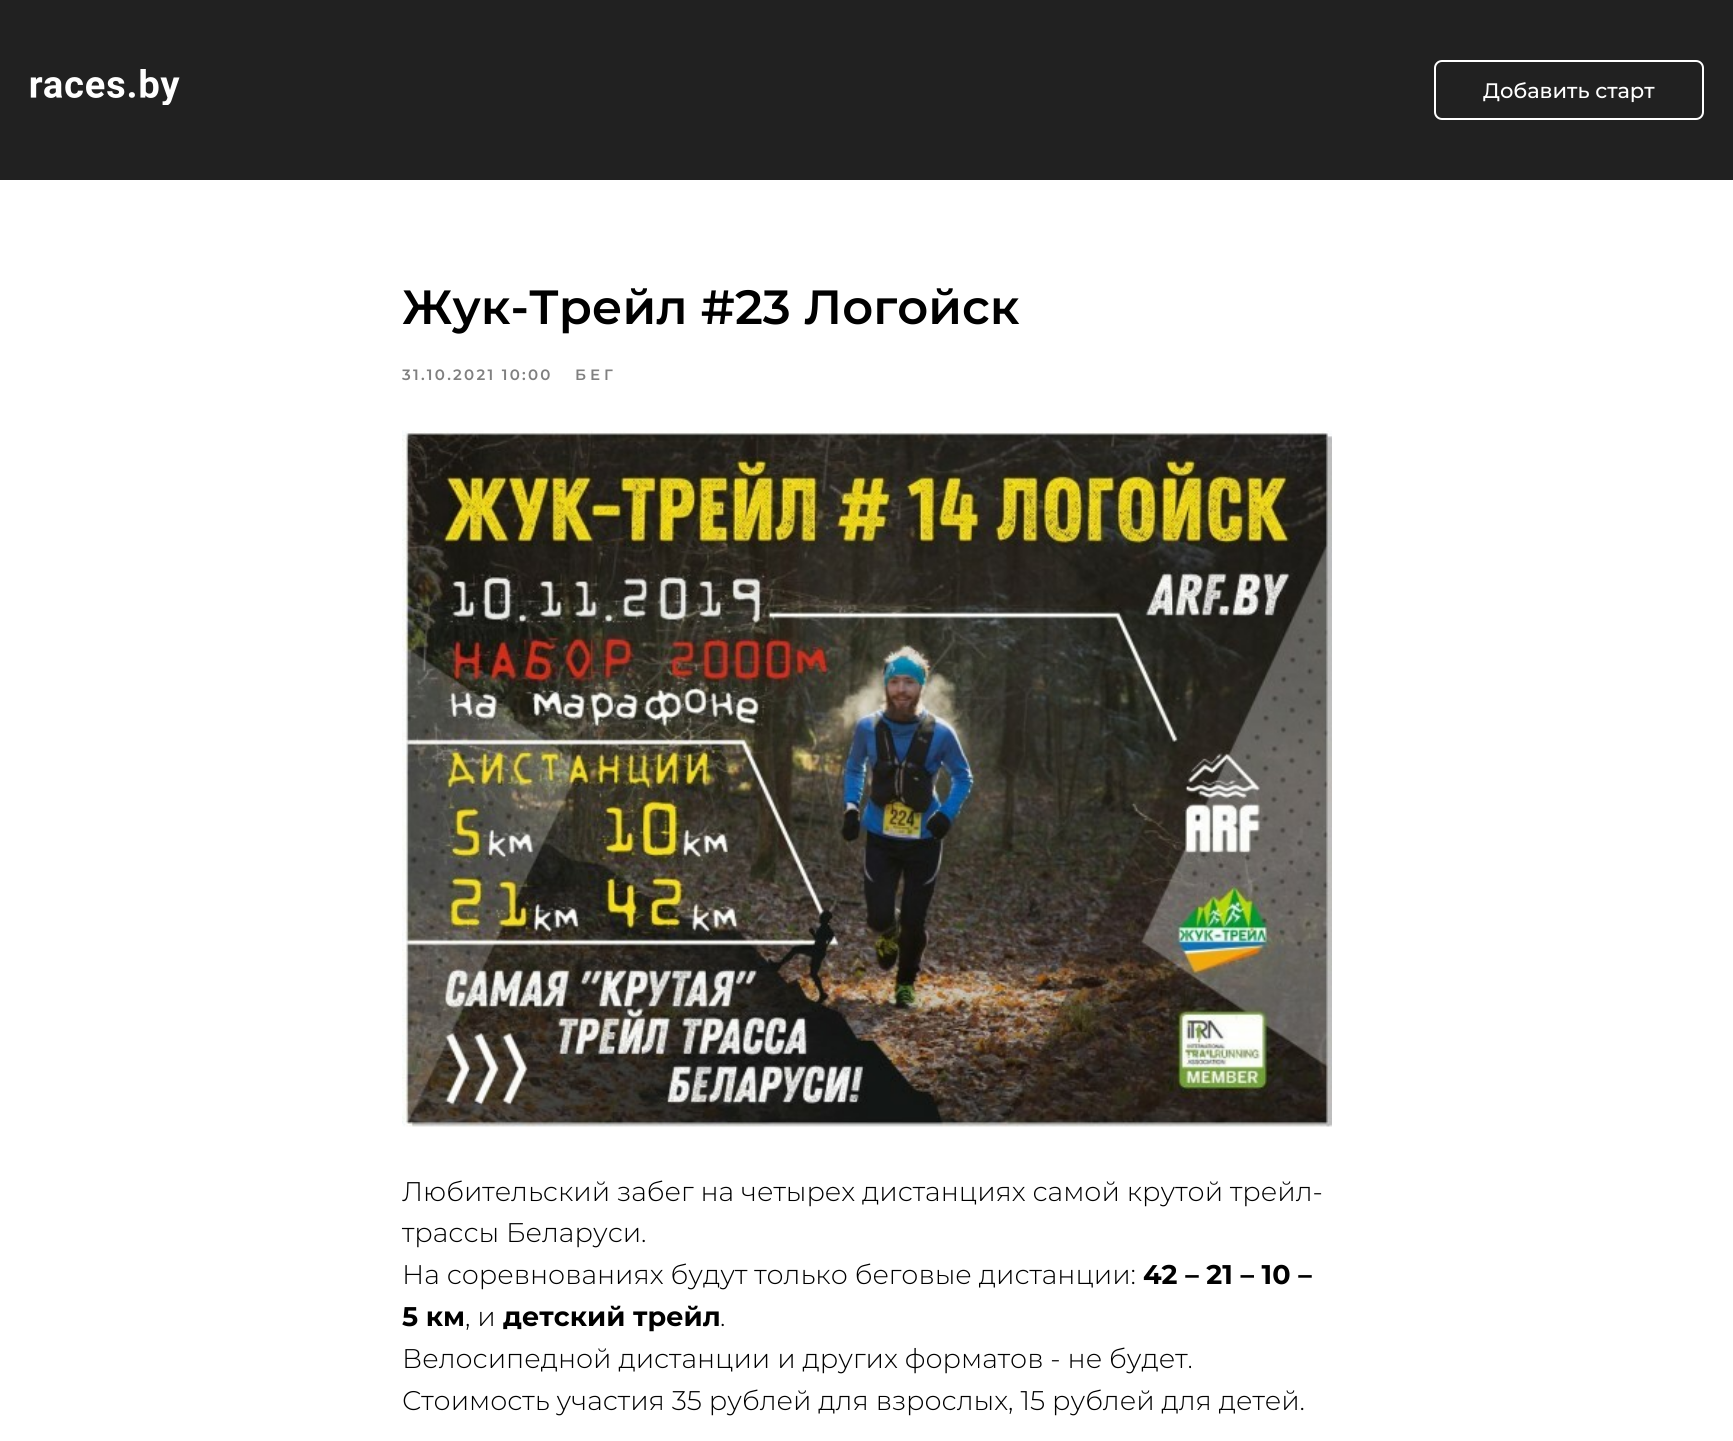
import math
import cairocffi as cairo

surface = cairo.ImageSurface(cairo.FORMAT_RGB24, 1733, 1441)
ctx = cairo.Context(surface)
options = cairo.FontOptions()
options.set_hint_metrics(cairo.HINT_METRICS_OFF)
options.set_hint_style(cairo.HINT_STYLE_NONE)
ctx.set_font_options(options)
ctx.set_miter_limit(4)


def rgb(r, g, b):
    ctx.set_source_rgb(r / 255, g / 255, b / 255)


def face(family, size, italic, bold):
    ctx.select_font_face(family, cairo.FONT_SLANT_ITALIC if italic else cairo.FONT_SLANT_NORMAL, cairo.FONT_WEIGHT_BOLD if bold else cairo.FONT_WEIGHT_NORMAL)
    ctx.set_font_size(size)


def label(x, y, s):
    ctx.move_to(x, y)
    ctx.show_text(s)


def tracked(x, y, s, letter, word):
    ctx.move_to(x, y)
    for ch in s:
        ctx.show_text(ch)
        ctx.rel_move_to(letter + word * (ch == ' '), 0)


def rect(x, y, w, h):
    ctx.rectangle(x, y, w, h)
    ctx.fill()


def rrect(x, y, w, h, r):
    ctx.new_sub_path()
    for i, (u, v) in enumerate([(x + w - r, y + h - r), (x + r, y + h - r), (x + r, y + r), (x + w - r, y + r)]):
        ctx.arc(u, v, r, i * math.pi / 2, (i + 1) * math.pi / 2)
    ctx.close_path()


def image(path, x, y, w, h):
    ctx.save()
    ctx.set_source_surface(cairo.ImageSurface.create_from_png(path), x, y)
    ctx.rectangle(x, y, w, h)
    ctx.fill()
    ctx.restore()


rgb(255, 255, 255)
ctx.paint()
rgb(33, 33, 33)
rect(0, 0, 1733, 180)
image('image0.png', 30, 69, 150, 36)
rrect(1435, 61, 268, 58, 7)
rgb(255, 255, 255)
ctx.stroke()
face('Montserrat Medium', 21, 0, 0)
label(1483, 98, 'Добавить старт')
face('Montserrat SemiBold', 48, 0, 0)
rgb(0, 0, 0)
label(402, 324, 'Жук-Трейл #23 Логойск')
face('Montserrat SemiBold', 15, 0, 0)
rgb(128, 128, 128)
tracked(402, 380, '31.10.2021 10:00', 2.25, 0)
tracked(575, 380, 'БЕГ', 4, 0)
image('image1.png', 402, 430, 930, 697)
face('Montserrat Light', 27, 0, 0)
rgb(0, 0, 0)
label(402, 1201, 'Любительский забег на четырех дистанциях самой крутой трейл-')
label(402, 1242, 'трассы Беларуси.')
label(402, 1284, 'На соревнованиях будут только беговые дистанции:')
face('Montserrat', 27, 0, 1)
label(1143, 1284, '42 – 21 – 10 –')
label(402, 1326, '5 км')
face('Montserrat Light', 27, 0, 0)
label(465, 1326, ', и')
face('Montserrat', 27, 0, 1)
label(503, 1326, 'детский трейл')
face('Montserrat Light', 27, 0, 0)
label(720, 1326, '.')
label(402, 1368, 'Велосипедной дистанции и других форматов - не будет.')
label(402, 1410, 'Стоимость участия 35 рублей для взрослых, 15 рублей для детей.')
surface.write_to_png('render.png')
